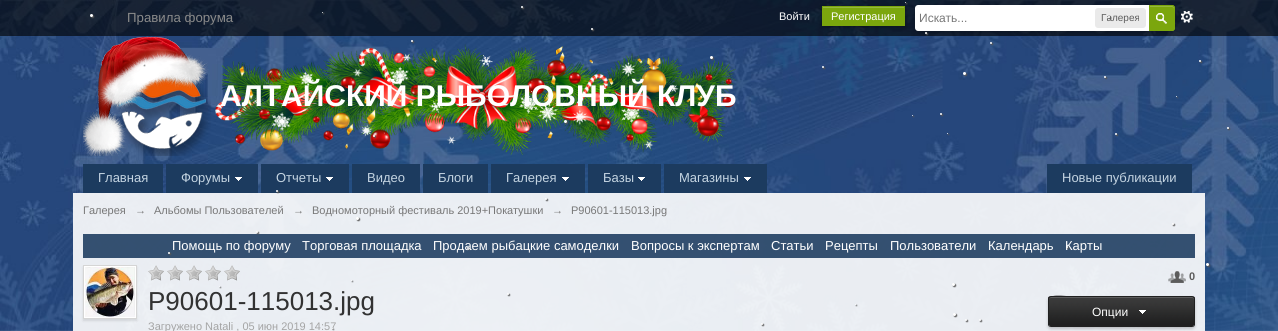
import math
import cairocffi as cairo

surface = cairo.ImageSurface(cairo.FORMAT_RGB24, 1278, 331)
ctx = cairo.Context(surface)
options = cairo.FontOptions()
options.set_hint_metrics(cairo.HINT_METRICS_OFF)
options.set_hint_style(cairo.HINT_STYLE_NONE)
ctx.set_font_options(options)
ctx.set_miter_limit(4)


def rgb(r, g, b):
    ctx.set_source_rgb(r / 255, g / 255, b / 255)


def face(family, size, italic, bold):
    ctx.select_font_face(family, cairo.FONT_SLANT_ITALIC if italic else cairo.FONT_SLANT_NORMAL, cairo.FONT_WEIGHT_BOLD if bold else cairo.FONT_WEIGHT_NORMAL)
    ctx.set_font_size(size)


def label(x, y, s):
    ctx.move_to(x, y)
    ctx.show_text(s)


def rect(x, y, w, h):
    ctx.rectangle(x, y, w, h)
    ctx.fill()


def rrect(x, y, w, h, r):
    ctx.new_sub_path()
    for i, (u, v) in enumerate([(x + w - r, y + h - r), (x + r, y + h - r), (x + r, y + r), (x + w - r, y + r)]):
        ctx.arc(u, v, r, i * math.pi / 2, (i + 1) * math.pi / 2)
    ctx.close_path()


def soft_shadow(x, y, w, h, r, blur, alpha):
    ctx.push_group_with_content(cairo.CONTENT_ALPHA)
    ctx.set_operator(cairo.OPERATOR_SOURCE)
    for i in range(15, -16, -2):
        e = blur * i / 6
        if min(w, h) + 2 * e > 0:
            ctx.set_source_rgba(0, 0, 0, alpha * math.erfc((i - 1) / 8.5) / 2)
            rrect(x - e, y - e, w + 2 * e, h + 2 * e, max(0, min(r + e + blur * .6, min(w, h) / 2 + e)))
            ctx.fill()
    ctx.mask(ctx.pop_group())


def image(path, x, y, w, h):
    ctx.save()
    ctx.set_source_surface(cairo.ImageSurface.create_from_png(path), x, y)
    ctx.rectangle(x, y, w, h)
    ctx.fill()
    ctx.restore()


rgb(255, 255, 255)
ctx.paint()
image('image0.png', 0, 330, 1278, 1)
image('image1.png', 0, 0, 1278, 331)
ctx.set_source_rgba(0, 0, 0, 0.63)
rect(0, 0, 1278, 36)
rgb(85, 85, 85)
soft_shadow(522, 7, 2, 2, 1, 0.5, 1)
rgb(255, 255, 255)
ctx.arc(522, 7, 1, 0, 2 * math.pi)
ctx.fill()
rgb(0, 0, 0)
soft_shadow(822, 7, 83, 20, 0, 2, 0.4)
rgb(123, 166, 13)
rect(822, 6, 83, 20)
rgb(85, 85, 85)
soft_shadow(906, 3, 1, 1, 0.5, 0.5, 1)
rgb(255, 255, 255)
ctx.arc(905.5, 2.5, 0.5, 0, 2 * math.pi)
ctx.fill()
rgb(85, 85, 85)
soft_shadow(91, 15, 3, 3, 1.5, 0.5, 1)
rgb(255, 255, 255)
ctx.arc(91.5, 15.5, 1.5, 0, 2 * math.pi)
ctx.fill()
rgb(85, 85, 85)
soft_shadow(323, 13, 1, 1, 0.5, 0.5, 1)
rgb(255, 255, 255)
ctx.arc(322.5, 12.5, 0.5, 0, 2 * math.pi)
ctx.fill()
image('image3.png', 1181, 11, 12, 12)
rgb(0, 0, 0)
soft_shadow(915, 7, 260, 26, 4, 2, 0.2)
rgb(255, 255, 255)
ctx.new_path()
ctx.move_to(918, 5)
ctx.line_to(1171, 5)
ctx.curve_to(1173, 5, 1175, 7, 1175, 9)
ctx.line_to(1175, 27)
ctx.curve_to(1175, 29, 1173, 31, 1171, 31)
ctx.line_to(918, 31)
ctx.curve_to(916.5, 31, 915, 29.5, 915, 28)
ctx.line_to(915, 8)
ctx.curve_to(915, 6.5, 916.5, 5, 918, 5)
ctx.close_path()
ctx.fill()
rgb(234, 234, 234)
rrect(1095, 8, 51, 20, 3)
ctx.fill()
rgb(85, 85, 85)
soft_shadow(1109, 17, 2, 2, 1, 0.5, 1)
face('Liberation Sans', 10, 0, 0)
rgb(92, 92, 92)
label(1101, 21, 'Галерея')
rgb(255, 255, 255)
ctx.new_path()
ctx.arc(1109, 17, 1, 0, 2 * math.pi)
ctx.fill()
rgb(85, 85, 85)
soft_shadow(592, 29, 2, 2, 1, 0.5, 1)
rgb(255, 255, 255)
ctx.arc(592, 29, 1, 0, 2 * math.pi)
ctx.fill()
rgb(85, 85, 85)
soft_shadow(926, 33, 2, 2, 1, 0.5, 1)
rgb(255, 255, 255)
ctx.arc(926, 33, 1, 0, 2 * math.pi)
ctx.fill()
image('image5.png', 215, 44, 521, 111)
rgb(85, 85, 85)
soft_shadow(412, 41, 2, 2, 1, 0.5, 1)
rgb(255, 255, 255)
ctx.arc(412, 41, 1, 0, 2 * math.pi)
ctx.fill()
rgb(85, 85, 85)
soft_shadow(991, 43, 2, 2, 1, 0.5, 1)
rgb(255, 255, 255)
ctx.arc(991, 43, 1, 0, 2 * math.pi)
ctx.fill()
image('image4.png', 83, 36, 128, 120)
rgb(85, 85, 85)
soft_shadow(144, 65, 1, 1, 0.5, 0.5, 1)
rgb(255, 255, 255)
ctx.arc(143.5, 64.5, 0.5, 0, 2 * math.pi)
ctx.fill()
rgb(85, 85, 85)
soft_shadow(711, 57, 3, 3, 1.5, 0.5, 1)
rgb(255, 255, 255)
ctx.arc(711.5, 57.5, 1.5, 0, 2 * math.pi)
ctx.fill()
rgb(85, 85, 85)
soft_shadow(823, 67, 2, 2, 1, 0.5, 1)
rgb(255, 255, 255)
ctx.arc(823, 67, 1, 0, 2 * math.pi)
ctx.fill()
rgb(85, 85, 85)
soft_shadow(1200, 61, 2, 2, 1, 0.5, 1)
rgb(255, 255, 255)
ctx.arc(1200, 61, 1, 0, 2 * math.pi)
ctx.fill()
rgb(85, 85, 85)
soft_shadow(964, 73, 3, 3, 1.5, 0.5, 1)
rgb(255, 255, 255)
ctx.arc(964.5, 73.5, 1.5, 0, 2 * math.pi)
ctx.fill()
rgb(85, 85, 85)
soft_shadow(1105, 77, 2, 2, 1, 0.5, 1)
rgb(255, 255, 255)
ctx.arc(1105, 77, 1, 0, 2 * math.pi)
ctx.fill()
rgb(85, 85, 85)
soft_shadow(532, 92, 1, 1, 0.5, 0.5, 1)
rgb(255, 255, 255)
ctx.arc(531.5, 91.5, 0.5, 0, 2 * math.pi)
ctx.fill()
rgb(85, 85, 85)
soft_shadow(1177, 97, 1, 1, 0.5, 0.5, 1)
rgb(255, 255, 255)
ctx.arc(1176.5, 96.5, 0.5, 0, 2 * math.pi)
ctx.fill()
rgb(85, 85, 85)
soft_shadow(308, 103, 2, 2, 1, 0.5, 1)
rgb(255, 255, 255)
ctx.arc(308, 103, 1, 0, 2 * math.pi)
ctx.fill()
rgb(85, 85, 85)
soft_shadow(913, 116, 1, 1, 0.5, 0.5, 1)
rgb(255, 255, 255)
ctx.arc(912.5, 115.5, 0.5, 0, 2 * math.pi)
ctx.fill()
rgb(85, 85, 85)
soft_shadow(941, 114, 2, 2, 1, 0.5, 1)
rgb(255, 255, 255)
ctx.arc(941, 114, 1, 0, 2 * math.pi)
ctx.fill()
rgb(85, 85, 85)
soft_shadow(565, 121, 3, 3, 1.5, 0.5, 1)
rgb(255, 255, 255)
ctx.arc(565.5, 121.5, 1.5, 0, 2 * math.pi)
ctx.fill()
rgb(85, 85, 85)
soft_shadow(1228, 128, 2, 2, 1, 0.5, 1)
rgb(255, 255, 255)
ctx.arc(1228, 128, 1, 0, 2 * math.pi)
ctx.fill()
rgb(85, 85, 85)
soft_shadow(374, 136, 2, 2, 1, 0.5, 1)
rgb(255, 255, 255)
ctx.arc(374, 136, 1, 0, 2 * math.pi)
ctx.fill()
rgb(85, 85, 85)
soft_shadow(948, 134, 1, 1, 0.5, 0.5, 1)
rgb(255, 255, 255)
ctx.arc(947.5, 133.5, 0.5, 0, 2 * math.pi)
ctx.fill()
rgb(85, 85, 85)
soft_shadow(1116, 134, 2, 2, 1, 0.5, 1)
rgb(255, 255, 255)
ctx.arc(1116, 134, 1, 0, 2 * math.pi)
ctx.fill()
rgb(28, 59, 95)
rect(261, 164, 88, 29)
ctx.set_source_rgba(1, 1, 1, 0.9)
rect(73, 193, 1132, 138)
rgb(85, 85, 85)
soft_shadow(277, 191, 2, 2, 1, 0.5, 1)
rgb(255, 255, 255)
ctx.arc(277, 191, 1, 0, 2 * math.pi)
ctx.fill()
rgb(85, 85, 85)
soft_shadow(546, 199, 2, 2, 1, 0.5, 1)
rgb(255, 255, 255)
ctx.arc(546, 199, 1, 0, 2 * math.pi)
ctx.fill()
rgb(85, 85, 85)
soft_shadow(357, 218, 3, 3, 1.5, 0.5, 1)
rgb(255, 255, 255)
ctx.arc(357.5, 218.5, 1.5, 0, 2 * math.pi)
ctx.fill()
rgb(85, 85, 85)
soft_shadow(1173, 224, 2, 2, 1, 0.5, 1)
rgb(255, 255, 255)
ctx.arc(1173, 224, 1, 0, 2 * math.pi)
ctx.fill()
ctx.set_source_rgba(0.11, 0.231, 0.373, 0.88)
rect(83, 234, 1112, 24)
rgb(85, 85, 85)
soft_shadow(257, 232, 2, 2, 1, 0.5, 1)
rgb(255, 255, 255)
ctx.arc(257, 232, 1, 0, 2 * math.pi)
ctx.fill()
rgb(85, 85, 85)
soft_shadow(468, 248, 2, 2, 1, 0.5, 1)
rgb(255, 255, 255)
ctx.arc(468, 248, 1, 0, 2 * math.pi)
ctx.fill()
rgb(85, 85, 85)
soft_shadow(1067, 247, 2, 2, 1, 0.5, 1)
rgb(255, 255, 255)
ctx.arc(1067, 247, 1, 0, 2 * math.pi)
ctx.fill()
rgb(85, 85, 85)
soft_shadow(169, 253, 2, 2, 1, 0.5, 1)
rgb(255, 255, 255)
ctx.arc(169, 253, 1, 0, 2 * math.pi)
ctx.fill()
rgb(85, 85, 85)
soft_shadow(1207, 264, 3, 3, 1.5, 0.5, 1)
rgb(255, 255, 255)
ctx.arc(1207.5, 264.5, 1.5, 0, 2 * math.pi)
ctx.fill()
rgb(85, 85, 85)
soft_shadow(220, 287, 1, 1, 0.5, 0.5, 1)
rgb(255, 255, 255)
ctx.arc(219.5, 286.5, 0.5, 0, 2 * math.pi)
ctx.fill()
rgb(85, 85, 85)
soft_shadow(352, 281, 1, 1, 0.5, 0.5, 1)
rgb(255, 255, 255)
ctx.arc(351.5, 280.5, 0.5, 0, 2 * math.pi)
ctx.fill()
rgb(85, 85, 85)
soft_shadow(953, 284, 3, 3, 1.5, 0.5, 1)
rgb(255, 255, 255)
ctx.arc(953.5, 284.5, 1.5, 0, 2 * math.pi)
ctx.fill()
rgb(85, 85, 85)
soft_shadow(508, 294, 2, 2, 1, 0.5, 1)
rgb(255, 255, 255)
ctx.arc(508, 294, 1, 0, 2 * math.pi)
ctx.fill()
rgb(85, 85, 85)
soft_shadow(856, 305, 1, 1, 0.5, 0.5, 1)
rgb(255, 255, 255)
ctx.arc(855.5, 304.5, 0.5, 0, 2 * math.pi)
ctx.fill()
rgb(85, 85, 85)
soft_shadow(954, 314, 3, 3, 1.5, 0.5, 1)
rgb(255, 255, 255)
ctx.arc(954.5, 314.5, 1.5, 0, 2 * math.pi)
ctx.fill()
rgb(85, 85, 85)
soft_shadow(333, 329, 1, 1, 0.5, 0.5, 1)
face('Liberation Sans', 11, 0, 0)
rgb(164, 164, 164)
label(148, 330, 'Загружено Natali , 05 июн 2019 14:57')
rgb(255, 255, 255)
ctx.new_path()
ctx.arc(332.5, 328.5, 0.5, 0, 2 * math.pi)
ctx.fill()
rgb(85, 85, 85)
soft_shadow(762, 324, 2, 2, 1, 0.5, 1)
rgb(255, 255, 255)
ctx.arc(762, 324, 1, 0, 2 * math.pi)
ctx.fill()
rgb(85, 85, 85)
soft_shadow(966, 320, 2, 2, 1, 0.5, 1)
rgb(255, 255, 255)
ctx.arc(966, 320, 1, 0, 2 * math.pi)
ctx.fill()
rgb(85, 85, 85)
soft_shadow(980, 320, 2, 2, 1, 0.5, 1)
rgb(255, 255, 255)
ctx.arc(980, 320, 1, 0, 2 * math.pi)
ctx.fill()
face('Liberation Sans', 13.25, 0, 0)
rgb(138, 138, 138)
label(127, 22, 'Правила форума')
face('Liberation Sans', 11, 0, 0)
rgb(255, 255, 255)
label(779, 20, 'Войти')
rgb(149, 184, 61)
rect(823, 7, 81, 1)
rgb(255, 255, 255)
label(831, 20, 'Регистрация')
face('Liberation Sans', 12, 0, 0)
rgb(119, 119, 119)
label(919, 22, 'Искать...')
rgb(123, 166, 13)
ctx.new_path()
ctx.move_to(1149, 5)
ctx.line_to(1172, 5)
ctx.curve_to(1173.5, 5, 1175, 6.5, 1175, 8)
ctx.line_to(1175, 28)
ctx.curve_to(1175, 29.5, 1173.5, 31, 1172, 31)
ctx.line_to(1149, 31)
ctx.close_path()
ctx.fill()
image('image2.png', 1156, 13, 11, 11)
rgb(149, 184, 61)
ctx.new_path()
ctx.move_to(1150, 7)
ctx.line_to(1172, 7)
ctx.curve_to(1173, 7, 1174, 8, 1174, 9)
ctx.line_to(1174, 8)
ctx.curve_to(1174, 7, 1173, 6, 1172, 6)
ctx.line_to(1150, 6)
ctx.close_path()
ctx.fill()
ctx.new_path()
ctx.move_to(1149.5, 5.5)
ctx.line_to(1172, 5.5)
ctx.curve_to(1173.5, 5.5, 1174.5, 6.5, 1174.5, 8)
ctx.line_to(1174.5, 28)
ctx.curve_to(1174.5, 29.5, 1173.5, 30.5, 1172, 30.5)
ctx.line_to(1149.5, 30.5)
ctx.close_path()
rgb(123, 166, 13)
ctx.set_line_width(1)
ctx.stroke()
face('Liberation Sans', 30, 0, 1)
rgb(255, 255, 255)
label(220, 106, 'АЛТАЙСКИЙ РЫБОЛОВНЫЙ КЛУБ')
rgb(28, 59, 95)
rect(83, 164, 80, 29)
face('Liberation Sans', 13, 0, 0)
rgb(197, 213, 226)
label(98, 182, 'Главная')
rgb(28, 59, 95)
rect(166, 164, 92, 29)
rgb(197, 213, 226)
label(181, 182, 'Форумы')
image('image6.png', 235, 177, 7, 4)
label(276, 182, 'Отчеты')
image('image6.png', 326, 177, 7, 4)
rgb(28, 59, 95)
rect(352, 164, 68, 29)
rgb(197, 213, 226)
label(367, 182, 'Видео')
rgb(28, 59, 95)
rect(423, 164, 65, 29)
rgb(197, 213, 226)
label(438, 182, 'Блоги')
rgb(28, 59, 95)
rect(491, 164, 94, 29)
rgb(197, 213, 226)
label(506, 182, 'Галерея')
image('image6.png', 562, 177, 7, 4)
rgb(28, 59, 95)
rect(588, 164, 73, 29)
rgb(197, 213, 226)
label(603, 182, 'Базы')
image('image6.png', 638, 177, 7, 4)
rgb(28, 59, 95)
rect(664, 164, 103, 29)
rgb(197, 213, 226)
label(679, 182, 'Магазины')
image('image6.png', 744, 177, 7, 4)
rgb(28, 59, 95)
rect(1047, 164, 145, 29)
rgb(197, 213, 226)
label(1062, 182, 'Новые публикации')
face('Liberation Sans', 11, 0, 0)
rgb(119, 119, 119)
label(83, 214, 'Галерея')
label(135, 214, '→')
label(154, 214, 'Альбомы Пользователей')
label(293, 214, '→')
label(312, 214, 'Водномоторный фестиваль 2019+Покатушки')
label(552, 214, '→')
label(571, 214, 'P90601-115013.jpg')
face('Liberation Sans', 13, 0, 0)
rgb(255, 255, 255)
label(172, 250, 'Помощь по форуму')
label(302, 250, 'Торговая площадка')
label(433, 250, 'Продаем рыбацкие самоделки')
label(631, 250, 'Вопросы к экспертам')
label(771, 250, 'Статьи')
label(825, 250, 'Рецепты')
label(890, 250, 'Пользователи')
label(988, 250, 'Календарь')
label(1065, 250, 'Карты')
rgb(0, 0, 0)
soft_shadow(83, 267, 54, 54, 0, 1, 0.1)
rgb(255, 255, 255)
ctx.rectangle(83.5, 265.5, 53, 53)
ctx.fill_preserve()
rgb(213, 213, 213)
ctx.stroke()
image('image7.png', 85, 267, 50, 50)
image('image8.png', 148, 265, 16, 16)
image('image9.png', 167, 265, 16, 16)
image('image10.png', 186, 265, 16, 16)
image('image11.png', 205, 265, 16, 16)
image('image12.png', 224, 265, 16, 16)
face('Liberation Sans', 26, 0, 0)
rgb(50, 50, 50)
label(148, 310, 'P90601-115013.jpg')
image('image13.png', 1168, 271, 18, 12)
face('Liberation Sans', 11, 0, 1)
rgb(92, 92, 92)
label(1189, 280, '0')
rgb(0, 0, 0)
soft_shadow(1048, 298, 147, 31, 3, 1.5, 0.2)
rgb(33, 33, 33)
ctx.new_path()
ctx.move_to(1051, 297)
ctx.line_to(1192, 297)
ctx.curve_to(1193, 297, 1194, 298, 1194, 299)
ctx.line_to(1194, 324)
ctx.curve_to(1194, 326, 1193, 327, 1192, 327)
ctx.line_to(1051, 327)
ctx.curve_to(1050, 327, 1049, 326, 1049, 324)
ctx.line_to(1049, 299)
ctx.curve_to(1049, 298, 1050, 297, 1051, 297)
ctx.close_path()
ctx.fill()
image('image14.png', 1048, 297, 147, 28)
rgb(92, 92, 92)
ctx.new_path()
ctx.move_to(1051, 298)
ctx.line_to(1192, 298)
ctx.curve_to(1193, 298, 1194, 299, 1194, 300)
ctx.curve_to(1194, 299, 1194, 298, 1193, 297)
ctx.line_to(1074, 297)
ctx.curve_to(1071, 297, 1049, 292, 1049, 300)
ctx.curve_to(1049, 299, 1050, 298, 1051, 298)
ctx.close_path()
ctx.fill()
rgb(33, 33, 33)
ctx.set_fill_rule(cairo.FILL_RULE_EVEN_ODD)
ctx.new_path()
ctx.move_to(1051, 296)
ctx.line_to(1192, 296)
ctx.curve_to(1194, 296, 1195, 297, 1195, 299)
ctx.line_to(1195, 324)
ctx.curve_to(1195, 326, 1194, 327, 1192, 327)
ctx.line_to(1051, 327)
ctx.curve_to(1049, 327, 1048, 326, 1048, 324)
ctx.line_to(1048, 299)
ctx.curve_to(1048, 297, 1049, 296, 1051, 296)
ctx.close_path()
ctx.move_to(1051, 297)
ctx.line_to(1192, 297)
ctx.curve_to(1193, 297, 1194, 298, 1194, 299)
ctx.line_to(1194, 324)
ctx.curve_to(1194, 326, 1193, 327, 1192, 327)
ctx.line_to(1051, 327)
ctx.curve_to(1050, 327, 1049, 326, 1049, 324)
ctx.line_to(1049, 299)
ctx.curve_to(1049, 298, 1050, 297, 1051, 297)
ctx.close_path()
ctx.fill()
face('Liberation Sans', 12, 0, 0)
rgb(255, 255, 255)
label(1092, 316, 'Опции')
image('image15.png', 1139, 310, 7, 4)
surface.write_to_png('render.png')
